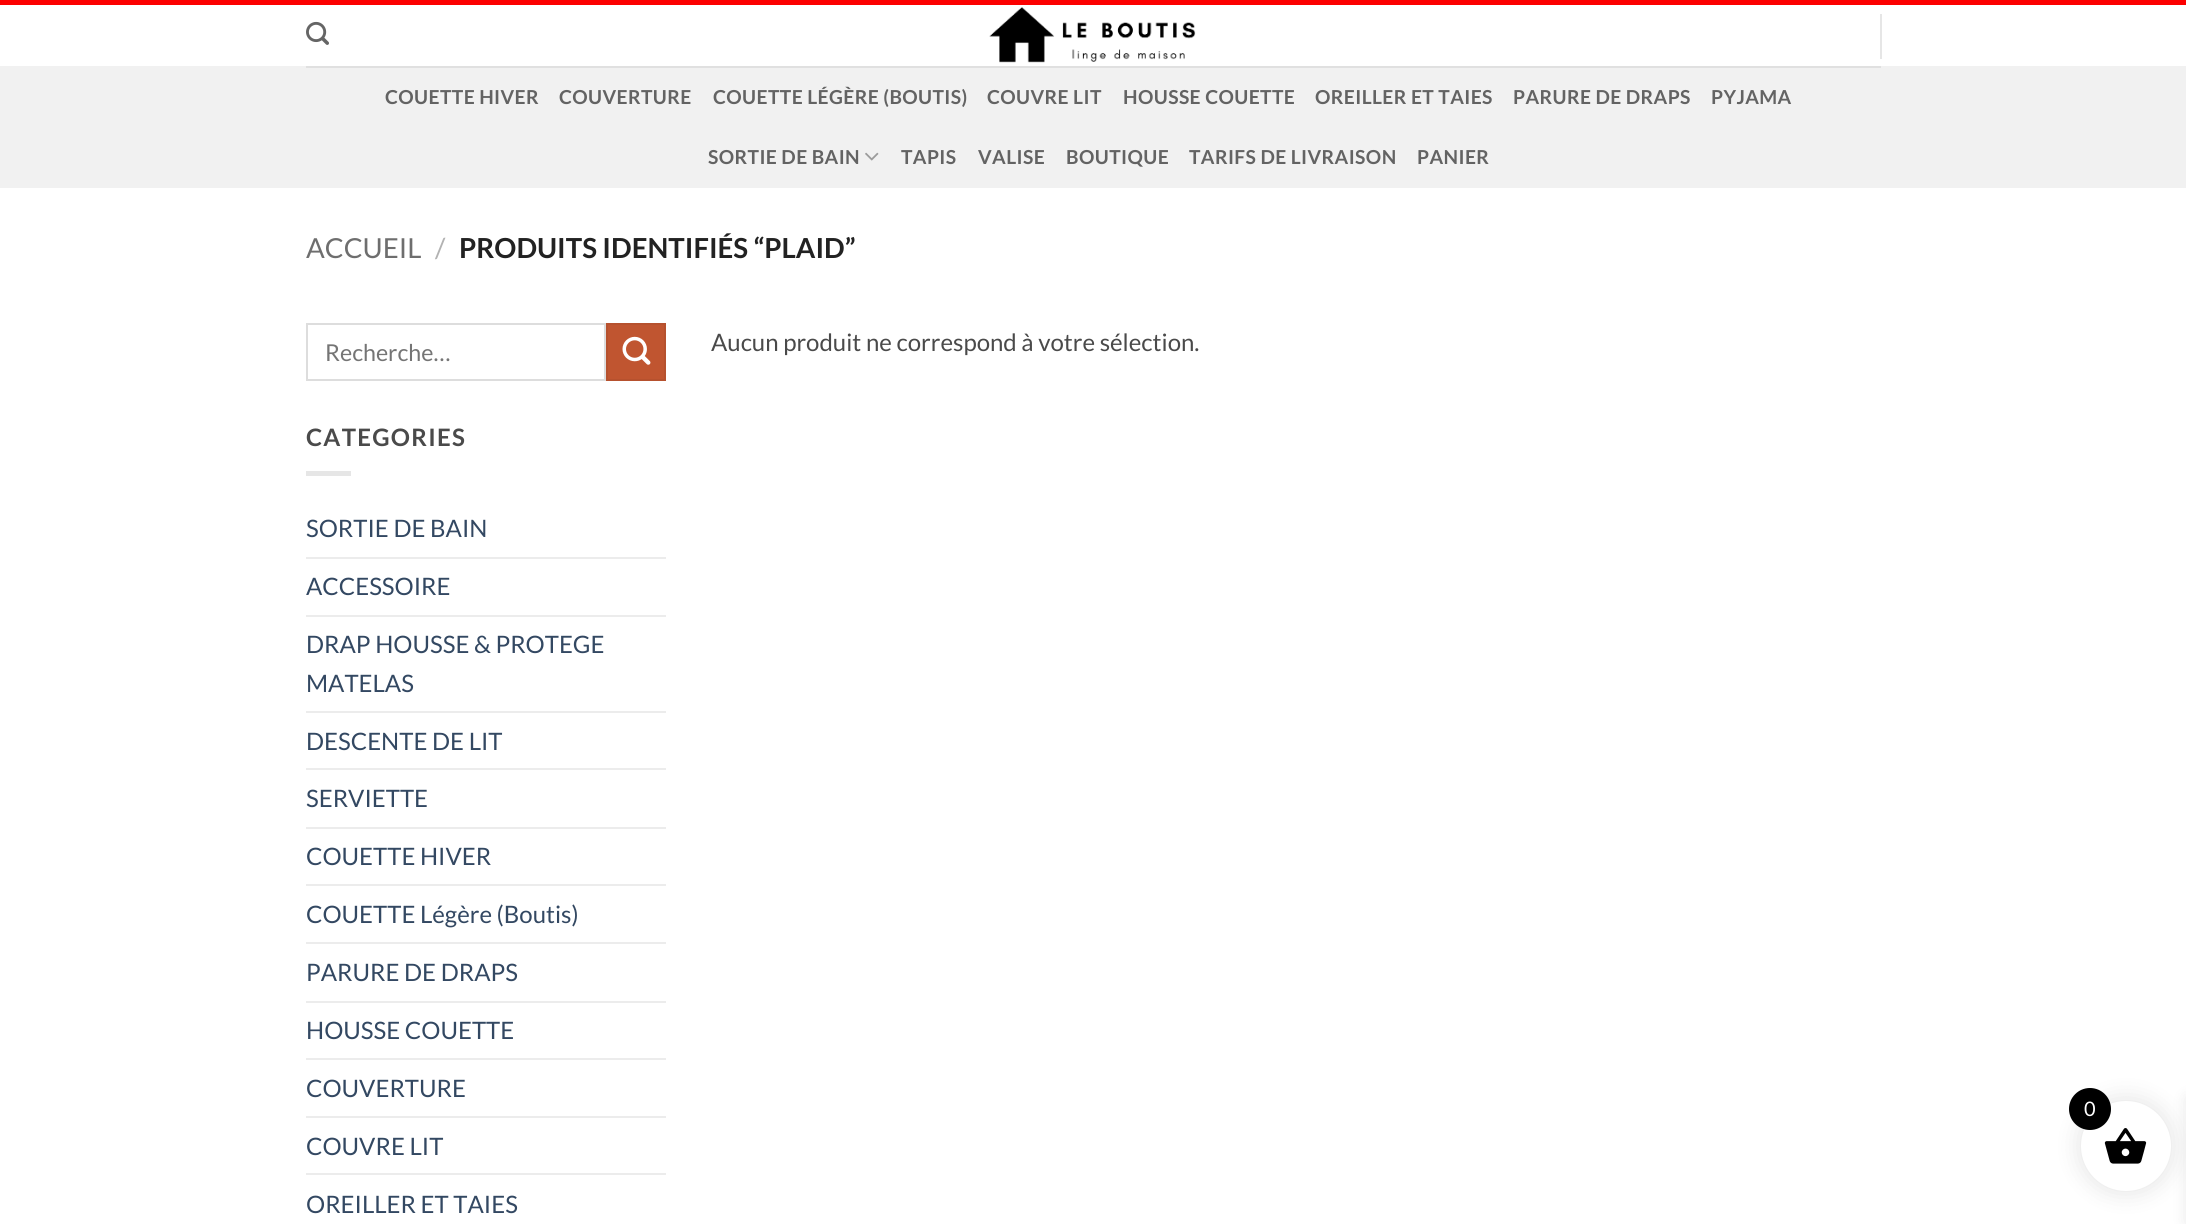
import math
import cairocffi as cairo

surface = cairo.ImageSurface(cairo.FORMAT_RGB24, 2186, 1224)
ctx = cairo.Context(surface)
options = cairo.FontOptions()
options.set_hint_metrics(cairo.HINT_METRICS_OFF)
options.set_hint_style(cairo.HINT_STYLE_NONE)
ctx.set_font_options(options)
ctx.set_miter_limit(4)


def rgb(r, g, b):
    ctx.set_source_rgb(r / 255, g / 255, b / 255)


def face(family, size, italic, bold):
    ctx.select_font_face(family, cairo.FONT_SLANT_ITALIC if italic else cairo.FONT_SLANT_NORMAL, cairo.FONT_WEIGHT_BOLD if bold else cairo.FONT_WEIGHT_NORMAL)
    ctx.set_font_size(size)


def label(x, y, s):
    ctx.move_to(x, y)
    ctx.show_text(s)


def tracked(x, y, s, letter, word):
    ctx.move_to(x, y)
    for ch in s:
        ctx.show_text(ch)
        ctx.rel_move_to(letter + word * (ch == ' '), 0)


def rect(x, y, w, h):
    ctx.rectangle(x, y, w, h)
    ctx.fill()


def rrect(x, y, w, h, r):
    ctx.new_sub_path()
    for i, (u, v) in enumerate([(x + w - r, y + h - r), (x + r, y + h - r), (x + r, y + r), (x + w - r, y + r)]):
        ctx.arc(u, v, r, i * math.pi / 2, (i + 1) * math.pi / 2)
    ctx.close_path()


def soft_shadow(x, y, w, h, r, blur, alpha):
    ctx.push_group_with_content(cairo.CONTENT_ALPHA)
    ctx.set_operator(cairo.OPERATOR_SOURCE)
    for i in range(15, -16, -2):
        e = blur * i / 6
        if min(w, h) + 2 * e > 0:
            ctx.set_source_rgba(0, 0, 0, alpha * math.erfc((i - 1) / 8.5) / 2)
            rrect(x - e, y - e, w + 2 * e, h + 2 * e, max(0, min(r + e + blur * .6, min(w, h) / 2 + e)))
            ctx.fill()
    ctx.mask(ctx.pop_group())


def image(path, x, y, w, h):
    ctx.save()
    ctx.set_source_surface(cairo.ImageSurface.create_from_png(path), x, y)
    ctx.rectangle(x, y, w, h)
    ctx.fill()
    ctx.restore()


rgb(255, 255, 255)
ctx.paint()
rgb(252, 0, 0)
rect(0, 0, 2186, 5)
image('image0.png', 306, 21, 23, 24)
image('image1.png', 989, 7, 207, 56)
rgb(230, 230, 230)
rect(1880, 14, 2, 45)
rgb(241, 241, 241)
rect(0, 66, 2186, 122)
rgb(224, 224, 224)
rect(306, 66, 1575, 2)
face('Lato', 19.25, 0, 1)
rgb(99, 99, 99)
tracked(385, 104, 'COUETTE HIVER', 0.4, 0)
tracked(559, 104, 'COUVERTURE', 0.4, 0)
tracked(713, 104, 'COUETTE LÉGÈRE (BOUTIS)', 0.4, 0)
tracked(987, 104, 'COUVRE LIT', 0.4, 0)
tracked(1123, 104, 'HOUSSE COUETTE', 0.4, 0)
tracked(1315, 104, 'OREILLER ET TAIES', 0.4, 0)
tracked(1513, 104, 'PARURE DE DRAPS', 0.4, 0)
tracked(1711, 104, 'PYJAMA', 0.4, 0)
tracked(708, 164, 'SORTIE DE BAIN', 0.4, 0)
image('image2.png', 865, 152, 14, 9)
tracked(901, 164, 'TAPIS', 0.4, 0)
tracked(978, 164, 'VALISE', 0.4, 0)
tracked(1066, 164, 'BOUTIQUE', 0.4, 0)
tracked(1189, 164, 'TARIFS DE LIVRAISON', 0.4, 0)
tracked(1417, 164, 'PANIER', 0.4, 0)
face('Lato', 27.6, 0, 0)
rgb(110, 110, 110)
label(306, 258, 'ACCUEIL')
rgb(178, 178, 178)
label(435, 258, '/')
face('Lato', 27.6, 0, 1)
rgb(34, 34, 34)
label(459, 258, 'PRODUITS IDENTIFIÉS “PLAID”')
ctx.rectangle(307, 324, 298, 56)
rgb(221, 221, 221)
ctx.stroke()
face('Lato', 23.25, 0, 0)
rgb(117, 117, 117)
label(325, 361, 'Recherche…')
rgb(192, 85, 48)
ctx.rectangle(607, 324, 58, 56)
ctx.fill_preserve()
rgb(182, 81, 46)
ctx.stroke()
image('image3.png', 622, 336, 29, 29)
face('Lato', 24, 0, 1)
rgb(74, 74, 74)
tracked(306, 446, 'CATEGORIES', 1.25, 0)
rgb(230, 230, 230)
rect(306, 471, 45, 5)
face('Lato', 24, 0, 0)
rgb(51, 72, 98)
label(306, 537, 'SORTIE DE BAIN')
rgb(236, 236, 236)
rect(306, 557, 360, 2)
rgb(51, 72, 98)
label(306, 595, 'ACCESSOIRE')
rgb(236, 236, 236)
rect(306, 615, 360, 2)
rgb(51, 72, 98)
label(306, 653, 'DRAP HOUSSE & PROTEGE')
label(306, 692, 'MATELAS')
rgb(236, 236, 236)
rect(306, 711, 360, 2)
rgb(51, 72, 98)
label(306, 750, 'DESCENTE DE LIT')
rgb(236, 236, 236)
rect(306, 768, 360, 2)
rgb(51, 72, 98)
label(306, 807, 'SERVIETTE')
rgb(236, 236, 236)
rect(306, 827, 360, 2)
rgb(51, 72, 98)
label(306, 865, 'COUETTE HIVER')
rgb(236, 236, 236)
rect(306, 884, 360, 2)
rgb(51, 72, 98)
label(306, 923, 'COUETTE Légère (Boutis)')
rgb(236, 236, 236)
rect(306, 942, 360, 2)
rgb(51, 72, 98)
label(306, 981, 'PARURE DE DRAPS')
rgb(236, 236, 236)
rect(306, 1001, 360, 2)
rgb(51, 72, 98)
label(306, 1039, 'HOUSSE COUETTE')
rgb(236, 236, 236)
rect(306, 1058, 360, 2)
rgb(51, 72, 98)
label(306, 1097, 'COUVERTURE')
rgb(236, 236, 236)
rect(306, 1116, 360, 2)
rgb(51, 72, 98)
label(306, 1155, 'COUVRE LIT')
rgb(236, 236, 236)
rect(306, 1173, 360, 2)
rgb(51, 72, 98)
label(306, 1213, 'OREILLER ET TAIES')
rgb(74, 74, 74)
label(711, 351, 'Aucun produit ne correspond à votre sélection.')
rgb(0, 0, 0)
soft_shadow(2078, 1098, 96, 96, 48, 11, 0.1)
soft_shadow(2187, 1098, 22, 125, 0, 7.5, 0.1)
rgb(255, 255, 255)
ctx.arc(2126, 1146, 45, 0, 2 * math.pi)
ctx.fill()
image('image4.png', 2104, 1128, 43, 36)
rgb(0, 0, 0)
ctx.arc(2090, 1109, 21, 0, 2 * math.pi)
ctx.fill()
face('Lato', 20, 0, 0)
rgb(255, 255, 255)
label(2084, 1116, '0')
surface.write_to_png('render.png')
